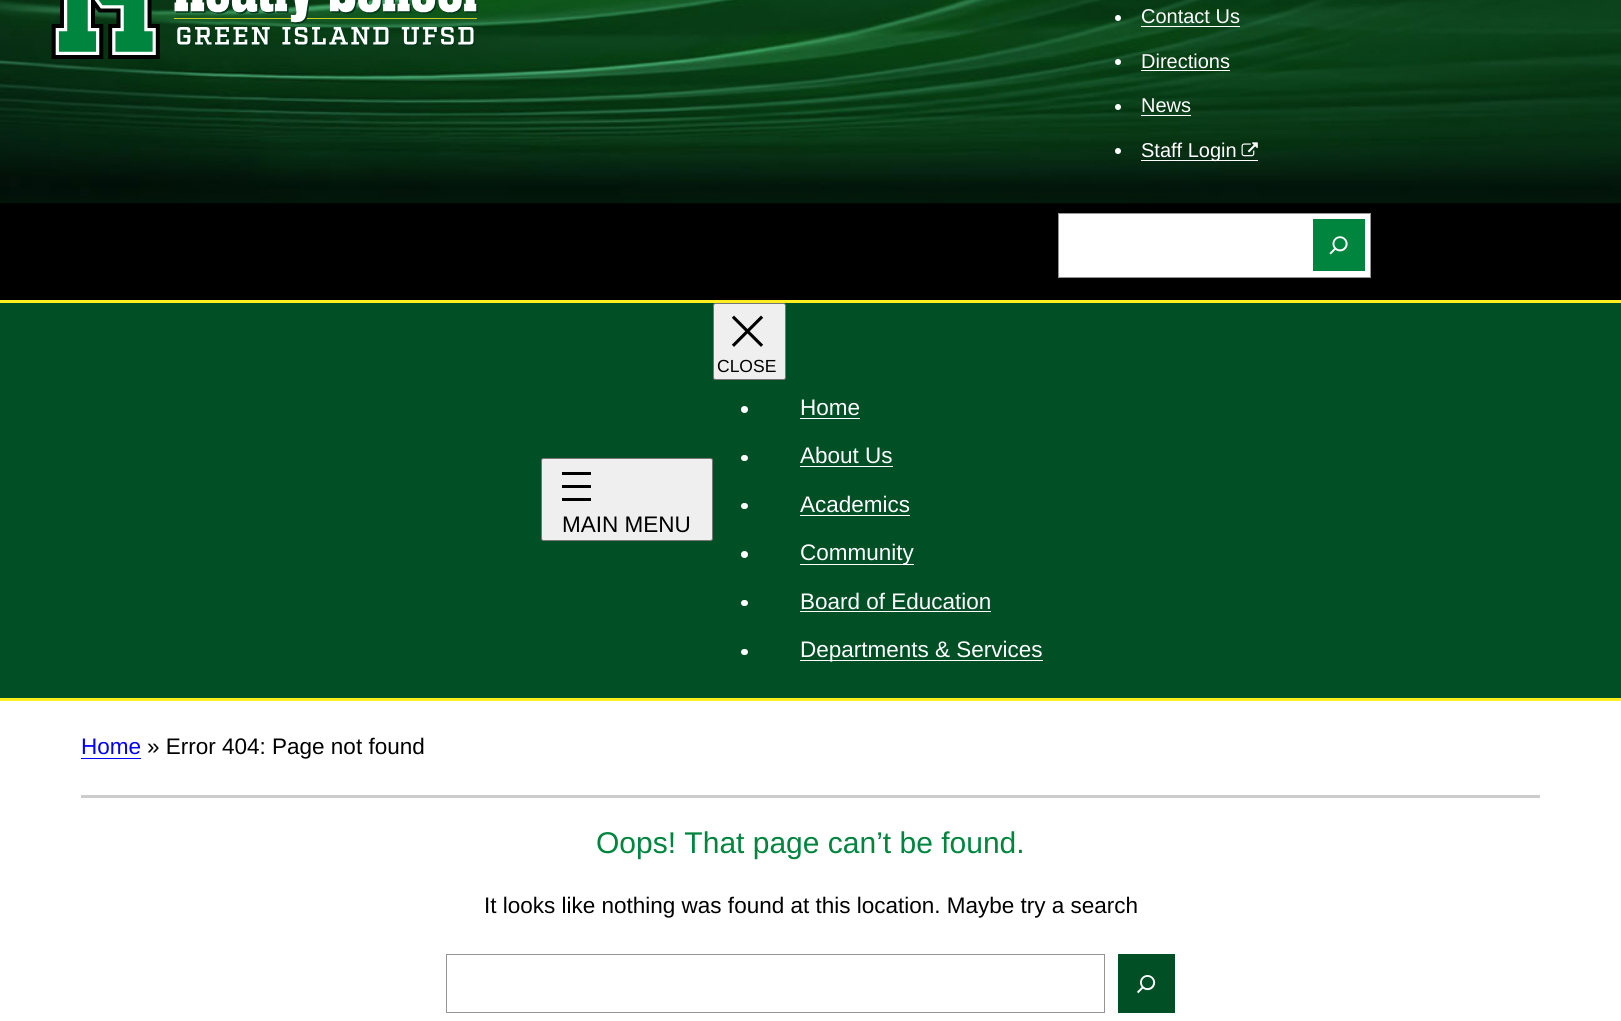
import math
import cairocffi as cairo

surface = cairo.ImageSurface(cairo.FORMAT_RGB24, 1621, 1021)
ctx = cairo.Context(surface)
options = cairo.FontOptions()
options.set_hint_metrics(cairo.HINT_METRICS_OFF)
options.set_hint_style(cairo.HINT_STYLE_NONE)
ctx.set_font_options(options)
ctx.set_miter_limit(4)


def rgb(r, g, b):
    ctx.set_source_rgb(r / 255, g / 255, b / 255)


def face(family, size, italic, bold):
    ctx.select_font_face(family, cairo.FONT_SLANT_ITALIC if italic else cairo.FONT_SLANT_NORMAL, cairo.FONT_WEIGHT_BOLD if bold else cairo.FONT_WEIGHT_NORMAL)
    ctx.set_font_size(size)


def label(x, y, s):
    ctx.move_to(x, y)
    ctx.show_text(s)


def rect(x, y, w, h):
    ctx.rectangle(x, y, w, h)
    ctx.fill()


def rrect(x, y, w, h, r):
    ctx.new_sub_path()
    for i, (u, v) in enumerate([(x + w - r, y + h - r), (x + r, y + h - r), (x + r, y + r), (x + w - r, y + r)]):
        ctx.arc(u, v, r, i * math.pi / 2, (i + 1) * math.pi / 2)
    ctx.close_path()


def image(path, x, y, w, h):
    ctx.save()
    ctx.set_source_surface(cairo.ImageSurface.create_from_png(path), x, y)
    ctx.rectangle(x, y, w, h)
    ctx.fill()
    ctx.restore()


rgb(255, 255, 255)
ctx.paint()
rgb(0, 79, 37)
rect(0, 303, 1621, 395)
rgb(0, 0, 0)
rect(0, 203, 1621, 97)
image('image0.png', 0, 0, 1621, 204)
image('image1.png', 51, 0, 427, 59)
rgb(255, 255, 255)
ctx.arc(1118, 18, 3, 0, 2 * math.pi)
ctx.fill()
face('Liberation Sans', 20, 0, 0)
label(1141, 23, 'Contact Us')
rect(1141, 26, 99, 1)
ctx.new_path()
ctx.arc(1118, 62, 3, 0, 2 * math.pi)
ctx.fill()
label(1141, 68, 'Directions')
rect(1141, 70, 89, 1)
ctx.new_path()
ctx.arc(1118, 107, 3, 0, 2 * math.pi)
ctx.fill()
label(1141, 112, 'News')
rect(1141, 115, 50, 1)
ctx.new_path()
ctx.arc(1118, 151, 3, 0, 2 * math.pi)
ctx.fill()
rect(1141, 160, 117, 1)
label(1141, 157, 'Staff Login')
image('image2.png', 1241, 142, 17, 15)
ctx.rectangle(1058.5, 213.5, 312, 64)
ctx.fill_preserve()
rgb(148, 148, 148)
ctx.set_line_width(1)
ctx.stroke()
rgb(0, 133, 62)
rect(1313, 219, 52, 52)
image('image3.png', 1329, 236, 19, 19)
rgb(252, 238, 33)
rect(0, 300, 1621, 3)
rect(0, 698, 1621, 3)
rgb(239, 239, 239)
rrect(541.5, 458.5, 171, 82, 2)
ctx.fill_preserve()
rgb(118, 118, 118)
ctx.stroke()
rgb(0, 0, 0)
rect(562, 472, 29, 3)
rect(562, 485, 29, 3)
rect(562, 498, 29, 3)
face('Liberation Sans', 22.5, 0, 0)
label(562, 532, 'MAIN MENU')
rgb(239, 239, 239)
rrect(713.5, 303.5, 72, 76, 2)
ctx.fill_preserve()
rgb(118, 118, 118)
ctx.stroke()
image('image4.png', 731, 315, 33, 32)
face('Liberation Sans', 17.5, 0, 0)
rgb(0, 0, 0)
label(717, 372, 'CLOSE')
rgb(255, 255, 255)
ctx.new_path()
ctx.arc(744.5, 409.5, 3.5, 0, 2 * math.pi)
ctx.fill()
face('Liberation Sans', 22.5, 0, 0)
label(800, 415, 'Home')
rect(800, 418, 60, 1)
rrect(741, 455, 7, 6, 3)
ctx.fill()
label(800, 463, 'About Us')
rect(800, 466, 93, 1)
rrect(741, 503, 7, 6, 3)
ctx.fill()
label(800, 512, 'Academics')
rect(800, 515, 110, 1)
ctx.new_path()
ctx.arc(744.5, 554.5, 3.5, 0, 2 * math.pi)
ctx.fill()
rect(800, 564, 114, 1)
label(800, 560, 'Community')
rrect(741, 600, 7, 6, 3)
ctx.fill()
label(800, 609, 'Board of Education')
rect(800, 611, 191, 1)
rrect(741, 649, 7, 6, 3)
ctx.fill()
rect(800, 660, 243, 1)
label(800, 657, 'Departments & Services')
rgb(0, 0, 255)
label(81, 754, 'Home')
rect(81, 758, 60, 1)
rgb(0, 0, 0)
label(147, 754, '» Error 404: Page not found')
rgb(204, 204, 204)
rect(81, 795, 1459, 3)
face('Liberation Sans', 30, 0, 0)
rgb(0, 133, 62)
label(596, 853, 'Oops! That page can’t be found.')
face('Liberation Sans', 22.5, 0, 0)
rgb(0, 0, 0)
label(484, 913, 'It looks like nothing was found at this location. Maybe try a search')
ctx.rectangle(446.5, 954.5, 658, 58)
rgb(148, 148, 148)
ctx.stroke()
rgb(0, 79, 37)
rect(1118, 954, 57, 59)
image('image5.png', 1137, 975, 19, 19)
surface.write_to_png('render.png')
